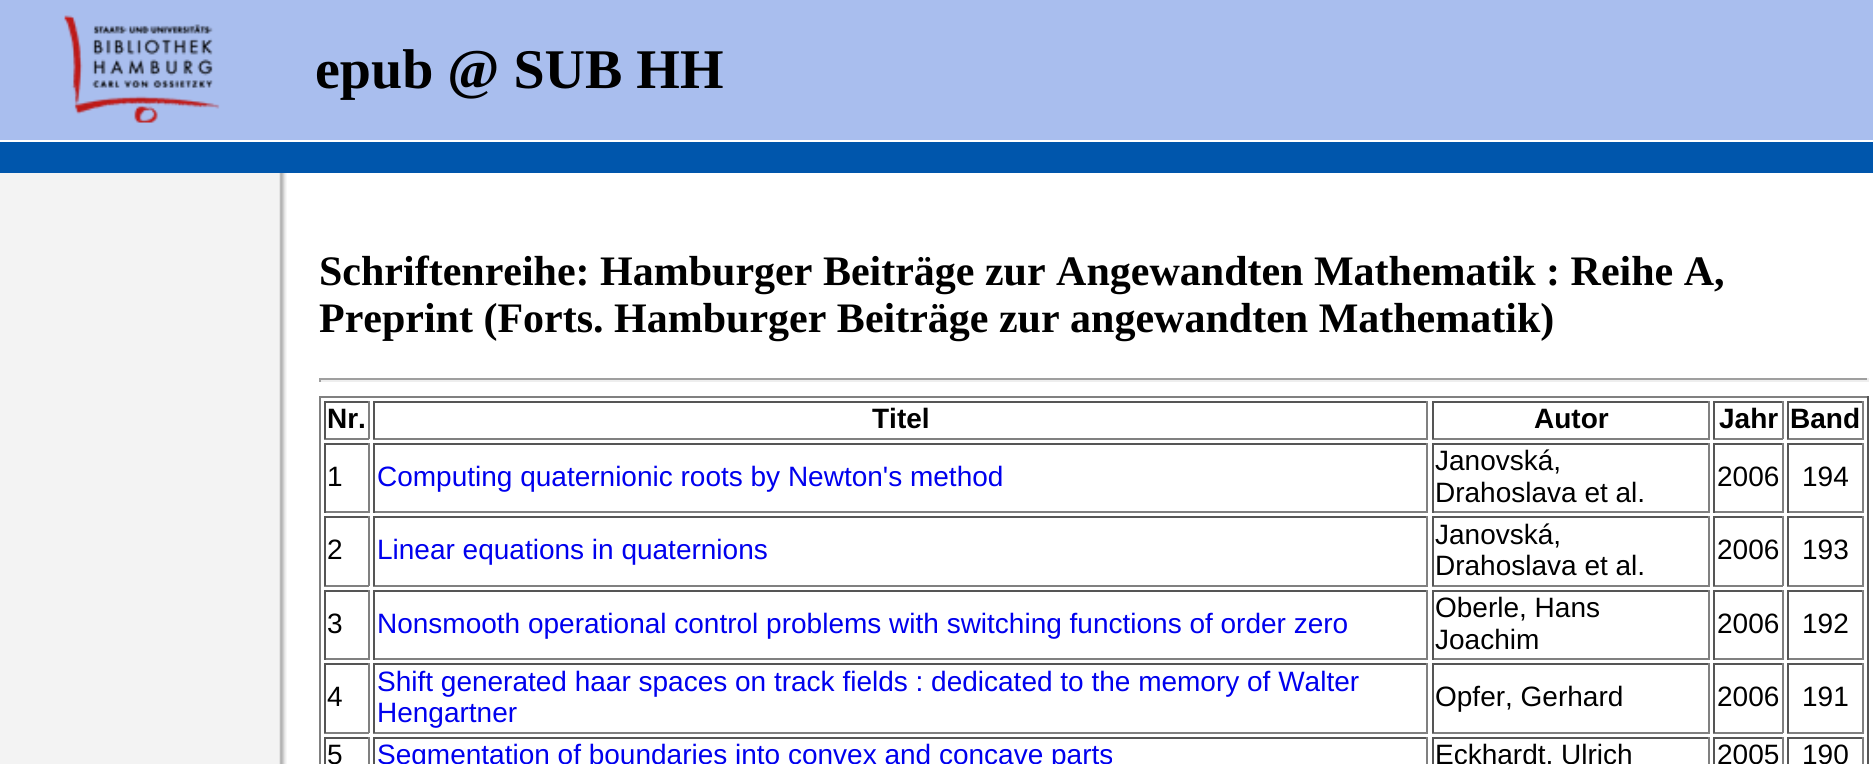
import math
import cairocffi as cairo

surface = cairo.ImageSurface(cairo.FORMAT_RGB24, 1873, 764)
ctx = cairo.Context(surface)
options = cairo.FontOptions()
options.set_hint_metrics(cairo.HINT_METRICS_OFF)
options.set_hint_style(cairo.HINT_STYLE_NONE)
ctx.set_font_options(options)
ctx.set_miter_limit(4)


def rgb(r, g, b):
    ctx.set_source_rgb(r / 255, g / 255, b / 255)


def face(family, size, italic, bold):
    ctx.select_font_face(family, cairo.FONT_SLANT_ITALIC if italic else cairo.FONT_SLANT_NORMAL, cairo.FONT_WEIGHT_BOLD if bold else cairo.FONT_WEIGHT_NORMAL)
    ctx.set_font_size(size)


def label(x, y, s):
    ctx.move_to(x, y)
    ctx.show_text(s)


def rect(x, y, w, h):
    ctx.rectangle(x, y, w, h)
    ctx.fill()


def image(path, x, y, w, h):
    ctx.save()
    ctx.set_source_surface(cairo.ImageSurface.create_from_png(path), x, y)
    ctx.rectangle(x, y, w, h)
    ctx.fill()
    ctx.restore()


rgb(255, 255, 255)
ctx.paint()
image('image0.png', 0, 173, 287, 591)
rgb(169, 190, 238)
rect(0, 0, 1873, 140)
image('image1.png', 64, 15, 156, 108)
face('Liberation Serif', 56, 0, 1)
rgb(0, 0, 0)
label(315, 88, 'epub @ SUB HH')
rgb(0, 86, 172)
rect(0, 142, 1873, 31)
face('Liberation Serif', 42, 0, 1)
rgb(0, 0, 0)
label(319, 285, 'Schriftenreihe: Hamburger Beiträge zur Angewandten Mathematik : Reihe A,')
label(319, 332, 'Preprint (Forts. Hamburger Beiträge zur angewandten Mathematik)')
rgb(159, 159, 159)
rect(319, 378, 1550, 2)
rgb(238, 238, 238)
rect(1867, 378, 2, 4)
rect(319, 380, 1550, 2)
rgb(159, 159, 159)
rect(319, 378, 2, 4)
rgb(128, 128, 128)
rect(319, 396, 1550, 2)
rgb(85, 85, 85)
rect(1867, 396, 2, 368)
rgb(128, 128, 128)
rect(319, 396, 2, 368)
rgb(85, 85, 85)
rect(324, 401, 45, 2)
rgb(128, 128, 128)
rect(368, 401, 2, 38)
rect(324, 438, 45, 2)
rgb(85, 85, 85)
rect(324, 401, 2, 38)
face('Liberation Sans', 28, 0, 1)
rgb(0, 0, 0)
label(327, 428, 'Nr.')
rgb(85, 85, 85)
rect(373, 401, 1055, 2)
rgb(128, 128, 128)
rect(1426, 401, 2, 38)
rect(373, 438, 1055, 2)
rgb(85, 85, 85)
rect(373, 401, 2, 38)
rgb(0, 0, 0)
label(872, 428, 'Titel')
rgb(85, 85, 85)
rect(1432, 401, 278, 2)
rgb(128, 128, 128)
rect(1708, 401, 2, 38)
rect(1432, 438, 278, 2)
rgb(85, 85, 85)
rect(1432, 401, 2, 38)
rgb(0, 0, 0)
label(1534, 428, 'Autor')
rgb(85, 85, 85)
rect(1713, 401, 70, 2)
rgb(128, 128, 128)
rect(1782, 401, 2, 38)
rect(1713, 438, 70, 2)
rgb(85, 85, 85)
rect(1713, 401, 2, 38)
rgb(0, 0, 0)
label(1719, 428, 'Jahr')
rgb(85, 85, 85)
rect(1787, 401, 77, 2)
rgb(128, 128, 128)
rect(1862, 401, 2, 38)
rect(1787, 438, 77, 2)
rgb(85, 85, 85)
rect(1787, 401, 2, 38)
rgb(0, 0, 0)
label(1790, 428, 'Band')
rgb(85, 85, 85)
rect(324, 443, 45, 2)
rgb(128, 128, 128)
rect(368, 443, 2, 70)
rect(324, 511, 45, 2)
rgb(85, 85, 85)
rect(324, 443, 2, 70)
face('Liberation Sans', 28, 0, 0)
rgb(0, 0, 0)
label(327, 486, '1')
rgb(85, 85, 85)
rect(373, 443, 1055, 2)
rgb(128, 128, 128)
rect(1426, 443, 2, 70)
rect(373, 511, 1055, 2)
rgb(85, 85, 85)
rect(373, 443, 2, 70)
rgb(0, 0, 238)
label(377, 486, 'Computing quaternionic roots by Newton\'s method')
rgb(85, 85, 85)
rect(1432, 443, 278, 2)
rgb(128, 128, 128)
rect(1708, 443, 2, 70)
rect(1432, 511, 278, 2)
rgb(85, 85, 85)
rect(1432, 443, 2, 70)
rgb(0, 0, 0)
label(1435, 470, 'Janovská,')
label(1435, 502, 'Drahoslava et al.')
rgb(85, 85, 85)
rect(1713, 443, 70, 2)
rgb(128, 128, 128)
rect(1782, 443, 2, 70)
rect(1713, 511, 70, 2)
rgb(85, 85, 85)
rect(1713, 443, 2, 70)
rgb(0, 0, 0)
label(1717, 486, '2006')
rgb(85, 85, 85)
rect(1787, 443, 77, 2)
rgb(128, 128, 128)
rect(1862, 443, 2, 70)
rect(1787, 511, 77, 2)
rgb(85, 85, 85)
rect(1787, 443, 2, 70)
rgb(0, 0, 0)
label(1802, 486, '194')
rgb(85, 85, 85)
rect(324, 516, 45, 2)
rgb(128, 128, 128)
rect(368, 516, 2, 70)
rect(324, 585, 45, 2)
rgb(85, 85, 85)
rect(324, 516, 2, 70)
rgb(0, 0, 0)
label(327, 559, '2')
rgb(85, 85, 85)
rect(373, 516, 1055, 2)
rgb(128, 128, 128)
rect(1426, 516, 2, 70)
rect(373, 585, 1055, 2)
rgb(85, 85, 85)
rect(373, 516, 2, 70)
rgb(0, 0, 238)
label(377, 559, 'Linear equations in quaternions')
rgb(85, 85, 85)
rect(1432, 516, 278, 2)
rgb(128, 128, 128)
rect(1708, 516, 2, 70)
rect(1432, 585, 278, 2)
rgb(85, 85, 85)
rect(1432, 516, 2, 70)
rgb(0, 0, 0)
label(1435, 544, 'Janovská,')
label(1435, 575, 'Drahoslava et al.')
rgb(85, 85, 85)
rect(1713, 516, 70, 2)
rgb(128, 128, 128)
rect(1782, 516, 2, 70)
rect(1713, 585, 70, 2)
rgb(85, 85, 85)
rect(1713, 516, 2, 70)
rgb(0, 0, 0)
label(1717, 559, '2006')
rgb(85, 85, 85)
rect(1787, 516, 77, 2)
rgb(128, 128, 128)
rect(1862, 516, 2, 70)
rect(1787, 585, 77, 2)
rgb(85, 85, 85)
rect(1787, 516, 2, 70)
rgb(0, 0, 0)
label(1802, 559, '193')
rgb(85, 85, 85)
rect(324, 590, 45, 2)
rgb(128, 128, 128)
rect(368, 590, 2, 70)
rect(324, 658, 45, 2)
rgb(85, 85, 85)
rect(324, 590, 2, 70)
rgb(0, 0, 0)
label(327, 633, '3')
rgb(85, 85, 85)
rect(373, 590, 1055, 2)
rgb(128, 128, 128)
rect(1426, 590, 2, 70)
rect(373, 658, 1055, 2)
rgb(85, 85, 85)
rect(373, 590, 2, 70)
rgb(0, 0, 238)
label(377, 633, 'Nonsmooth operational control problems with switching functions of order zero')
rgb(85, 85, 85)
rect(1432, 590, 278, 2)
rgb(128, 128, 128)
rect(1708, 590, 2, 70)
rect(1432, 658, 278, 2)
rgb(85, 85, 85)
rect(1432, 590, 2, 70)
rgb(0, 0, 0)
label(1435, 617, 'Oberle, Hans')
label(1435, 649, 'Joachim')
rgb(85, 85, 85)
rect(1713, 590, 70, 2)
rgb(128, 128, 128)
rect(1782, 590, 2, 70)
rect(1713, 658, 70, 2)
rgb(85, 85, 85)
rect(1713, 590, 2, 70)
rgb(0, 0, 0)
label(1717, 633, '2006')
rgb(85, 85, 85)
rect(1787, 590, 77, 2)
rgb(128, 128, 128)
rect(1862, 590, 2, 70)
rect(1787, 658, 77, 2)
rgb(85, 85, 85)
rect(1787, 590, 2, 70)
rgb(0, 0, 0)
label(1802, 633, '192')
rgb(85, 85, 85)
rect(324, 663, 45, 2)
rgb(128, 128, 128)
rect(368, 663, 2, 70)
rect(324, 732, 45, 2)
rgb(85, 85, 85)
rect(324, 663, 2, 70)
rgb(0, 0, 0)
label(327, 706, '4')
rgb(85, 85, 85)
rect(373, 663, 1055, 2)
rgb(128, 128, 128)
rect(1426, 663, 2, 70)
rect(373, 732, 1055, 2)
rgb(85, 85, 85)
rect(373, 663, 2, 70)
rgb(0, 0, 238)
label(377, 691, 'Shift generated haar spaces on track fields : dedicated to the memory of Walter')
label(377, 722, 'Hengartner')
rgb(85, 85, 85)
rect(1432, 663, 278, 2)
rgb(128, 128, 128)
rect(1708, 663, 2, 70)
rect(1432, 732, 278, 2)
rgb(85, 85, 85)
rect(1432, 663, 2, 70)
rgb(0, 0, 0)
label(1435, 706, 'Opfer, Gerhard')
rgb(85, 85, 85)
rect(1713, 663, 70, 2)
rgb(128, 128, 128)
rect(1782, 663, 2, 70)
rect(1713, 732, 70, 2)
rgb(85, 85, 85)
rect(1713, 663, 2, 70)
rgb(0, 0, 0)
label(1717, 706, '2006')
rgb(85, 85, 85)
rect(1787, 663, 77, 2)
rgb(128, 128, 128)
rect(1862, 663, 2, 70)
rect(1787, 732, 77, 2)
rgb(85, 85, 85)
rect(1787, 663, 2, 70)
rgb(0, 0, 0)
label(1802, 706, '191')
rgb(85, 85, 85)
rect(324, 737, 45, 2)
rgb(128, 128, 128)
rect(368, 737, 2, 27)
rgb(85, 85, 85)
rect(324, 737, 2, 27)
rgb(0, 0, 0)
label(327, 764, '5')
rgb(85, 85, 85)
rect(373, 737, 1055, 2)
rgb(128, 128, 128)
rect(1426, 737, 2, 27)
rgb(85, 85, 85)
rect(373, 737, 2, 27)
rgb(0, 0, 238)
label(377, 764, 'Segmentation of boundaries into convex and concave parts')
rgb(85, 85, 85)
rect(1432, 737, 278, 2)
rgb(128, 128, 128)
rect(1708, 737, 2, 27)
rgb(85, 85, 85)
rect(1432, 737, 2, 27)
rgb(0, 0, 0)
label(1435, 764, 'Eckhardt, Ulrich')
rgb(85, 85, 85)
rect(1713, 737, 70, 2)
rgb(128, 128, 128)
rect(1782, 737, 2, 27)
rgb(85, 85, 85)
rect(1713, 737, 2, 27)
rgb(0, 0, 0)
label(1717, 764, '2005')
rgb(85, 85, 85)
rect(1787, 737, 77, 2)
rgb(128, 128, 128)
rect(1862, 737, 2, 27)
rgb(85, 85, 85)
rect(1787, 737, 2, 27)
rgb(0, 0, 0)
label(1802, 764, '190')
surface.write_to_png('render.png')
